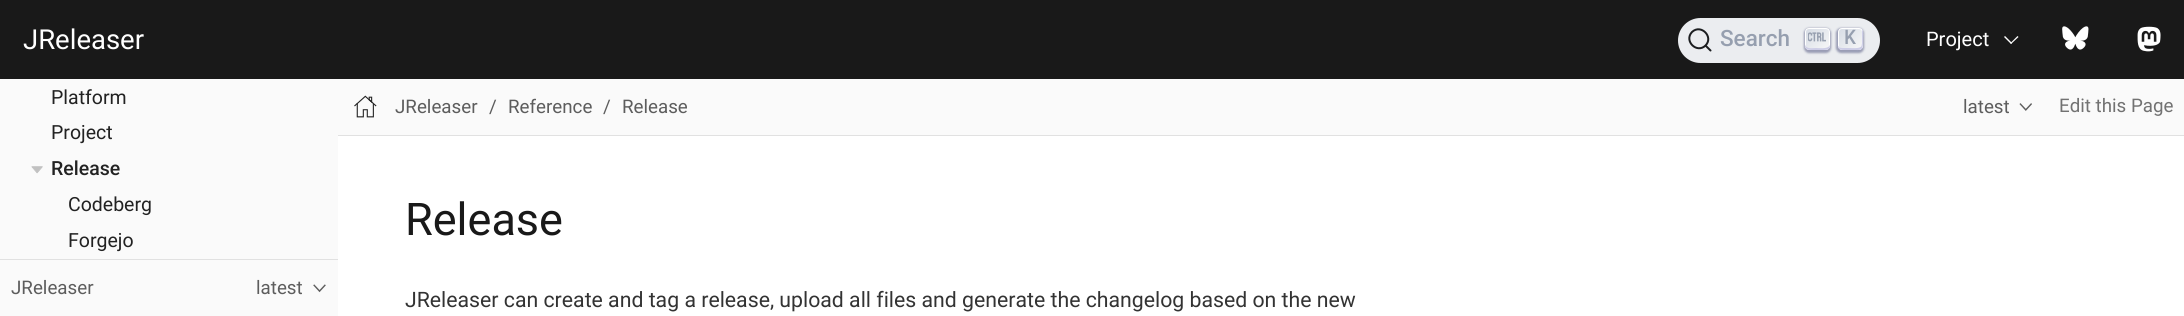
import math
import cairocffi as cairo

surface = cairo.ImageSurface(cairo.FORMAT_RGB24, 2184, 316)
ctx = cairo.Context(surface)
options = cairo.FontOptions()
options.set_hint_metrics(cairo.HINT_METRICS_OFF)
options.set_hint_style(cairo.HINT_STYLE_NONE)
ctx.set_font_options(options)
ctx.set_miter_limit(4)


def rgb(r, g, b):
    ctx.set_source_rgb(r / 255, g / 255, b / 255)


def face(family, size, italic, bold):
    ctx.select_font_face(family, cairo.FONT_SLANT_ITALIC if italic else cairo.FONT_SLANT_NORMAL, cairo.FONT_WEIGHT_BOLD if bold else cairo.FONT_WEIGHT_NORMAL)
    ctx.set_font_size(size)


def label(x, y, s):
    ctx.move_to(x, y)
    ctx.show_text(s)


def rect(x, y, w, h):
    ctx.rectangle(x, y, w, h)
    ctx.fill()


def rrect(x, y, w, h, r):
    ctx.new_sub_path()
    for i, (u, v) in enumerate([(x + w - r, y + h - r), (x + r, y + h - r), (x + r, y + r), (x + w - r, y + r)]):
        ctx.arc(u, v, r, i * math.pi / 2, (i + 1) * math.pi / 2)
    ctx.close_path()


def soft_shadow(x, y, w, h, r, blur, alpha):
    ctx.push_group_with_content(cairo.CONTENT_ALPHA)
    ctx.set_operator(cairo.OPERATOR_SOURCE)
    for i in range(15, -16, -2):
        e = blur * i / 6
        if min(w, h) + 2 * e > 0:
            ctx.set_source_rgba(0, 0, 0, alpha * math.erfc((i - 1) / 8.5) / 2)
            rrect(x - e, y - e, w + 2 * e, h + 2 * e, max(0, min(r + e + blur * .6, min(w, h) / 2 + e)))
            ctx.fill()
    ctx.mask(ctx.pop_group())


def image(path, x, y, w, h):
    ctx.save()
    ctx.set_source_surface(cairo.ImageSurface.create_from_png(path), x, y)
    ctx.rectangle(x, y, w, h)
    ctx.fill()
    ctx.restore()


rgb(255, 255, 255)
ctx.paint()
rgb(25, 25, 25)
rect(0, 0, 2184, 79)
face('Roboto', 27.5, 0, 0)
rgb(255, 255, 255)
label(23, 49, 'JReleaser')
rgb(235, 237, 240)
rrect(1678, 18, 202, 45, 22.5)
ctx.fill()
ctx.new_path()
ctx.move_to(1705.5, 45.5)
ctx.line_to(1710.5, 50.5)
ctx.line_to(1705.5, 45.5)
ctx.curve_to(1697, 54, 1683.5, 41, 1692, 32)
ctx.curve_to(1701, 23.5, 1714, 37, 1705.5, 45.5)
ctx.close_path()
rgb(28, 30, 33)
ctx.set_line_cap(cairo.LINE_CAP_ROUND)
ctx.set_line_join(cairo.LINE_JOIN_ROUND)
ctx.stroke()
face('Roboto Medium', 22.5, 0, 0)
rgb(150, 159, 175)
label(1720, 46, 'Search')
rgb(30, 35, 90)
soft_shadow(1804, 28, 27, 25, 5, 1, 0.4)
gradient = cairo.LinearGradient(1806, 27, 1829, 51)
gradient.add_color_stop_rgba(0, 0.835, 0.859, 0.894, 1)
gradient.add_color_stop_rgba(1, 0.973, 0.973, 0.973, 1)
ctx.set_source(gradient)
rrect(1805.5, 28.5, 24, 21, 3.5)
ctx.fill_preserve()
rgb(255, 255, 255)
ctx.set_line_width(1)
ctx.set_line_cap(cairo.LINE_CAP_BUTT)
ctx.set_line_join(cairo.LINE_JOIN_MITER)
ctx.stroke()
rgb(205, 205, 230)
ctx.new_path()
ctx.move_to(1830, 44.5)
ctx.curve_to(1829, 49.5, 1819.5, 48, 1816, 48)
ctx.curve_to(1812, 48, 1806.5, 49.5, 1805, 44.5)
ctx.curve_to(1805, 49.5, 1807, 50, 1812, 50)
ctx.line_to(1823, 50)
ctx.curve_to(1828, 50, 1830, 49.5, 1830, 44.5)
ctx.close_path()
ctx.fill()
image('image0.png', 1808, 32, 18, 10)
rgb(30, 35, 90)
soft_shadow(1836, 28, 28, 25, 5, 1, 0.4)
gradient = cairo.LinearGradient(1838, 27, 1862, 51)
gradient.add_color_stop_rgba(0, 0.835, 0.859, 0.894, 1)
gradient.add_color_stop_rgba(1, 0.973, 0.973, 0.973, 1)
ctx.set_source(gradient)
rrect(1838.5, 28.5, 24, 21, 3.5)
ctx.fill_preserve()
rgb(255, 255, 255)
ctx.stroke()
rgb(205, 205, 230)
ctx.new_path()
ctx.move_to(1862, 29.5)
ctx.line_to(1862, 36.5)
ctx.line_to(1862, 43.5)
ctx.line_to(1861.5, 46)
ctx.curve_to(1860, 49, 1851.5, 48, 1848.5, 48)
ctx.line_to(1843.5, 48)
ctx.curve_to(1841, 48, 1839, 48, 1838, 45.5)
ctx.curve_to(1838, 50, 1841, 50, 1845, 50)
ctx.line_to(1850.5, 50)
ctx.curve_to(1863, 50, 1863, 51.5, 1863, 39)
ctx.curve_to(1863, 36.5, 1864, 31.5, 1862, 29.5)
ctx.close_path()
ctx.fill()
face('Roboto Mono Medium', 20, 0, 0)
rgb(150, 159, 175)
label(1844, 44, 'K')
face('Roboto', 20, 0, 0)
rgb(255, 255, 255)
label(1926, 46, 'Project')
ctx.new_path()
ctx.move_to(2010.5, 43)
ctx.line_to(2017.5, 36)
ctx.line_to(2018.5, 37)
ctx.line_to(2011, 44)
ctx.close_path()
ctx.fill()
ctx.new_path()
ctx.move_to(2004, 37)
ctx.line_to(2005, 36)
ctx.line_to(2012, 43)
ctx.line_to(2011, 44)
ctx.close_path()
ctx.fill()
image('image1.png', 2062, 26, 27, 24)
image('image2.png', 2137, 26, 24, 26)
rgb(250, 250, 250)
rect(0, 79, 338, 237)
face('Roboto', 19.5, 0, 0)
rgb(34, 34, 34)
label(51, 104, 'Platform')
label(51, 139, 'Project')
image('image3.png', 31, 166, 12, 8)
face('Roboto Medium', 19.5, 0, 0)
label(51, 175, 'Release')
face('Roboto', 19.5, 0, 0)
label(68, 211, 'Codeberg')
label(68, 247, 'Forgejo')
rgb(225, 225, 225)
ctx.new_path()
ctx.move_to(0, 259)
ctx.line_to(0, 260)
ctx.line_to(338, 260)
ctx.line_to(338, 315)
ctx.line_to(338, 259)
ctx.close_path()
ctx.fill()
face('Roboto', 18.75, 0, 0)
rgb(93, 93, 93)
label(11, 294, 'JReleaser')
label(256, 294, 'latest')
image('image4.png', 313, 284, 13, 9)
rgb(225, 225, 225)
rect(338, 135, 1846, 1)
rgb(250, 250, 250)
rect(338, 79, 1846, 56)
image('image5.png', 354, 95, 23, 23)
rgb(93, 93, 93)
label(395, 113, 'JReleaser')
label(489, 113, '/')
label(508, 113, 'Reference')
label(603, 113, '/')
label(622, 113, 'Release')
image('image6.png', 2019, 103, 13, 8)
label(1963, 113, 'latest')
rgb(114, 114, 114)
label(2059, 112, 'Edit this Page')
face('Roboto', 45, 0, 0)
rgb(25, 25, 25)
label(405, 235, 'Release')
face('Roboto', 21.25, 0, 0)
rgb(51, 51, 51)
label(405, 307, 'JReleaser can create and tag a release, upload all files and generate the changelog based on the new')
surface.write_to_png('render.png')
